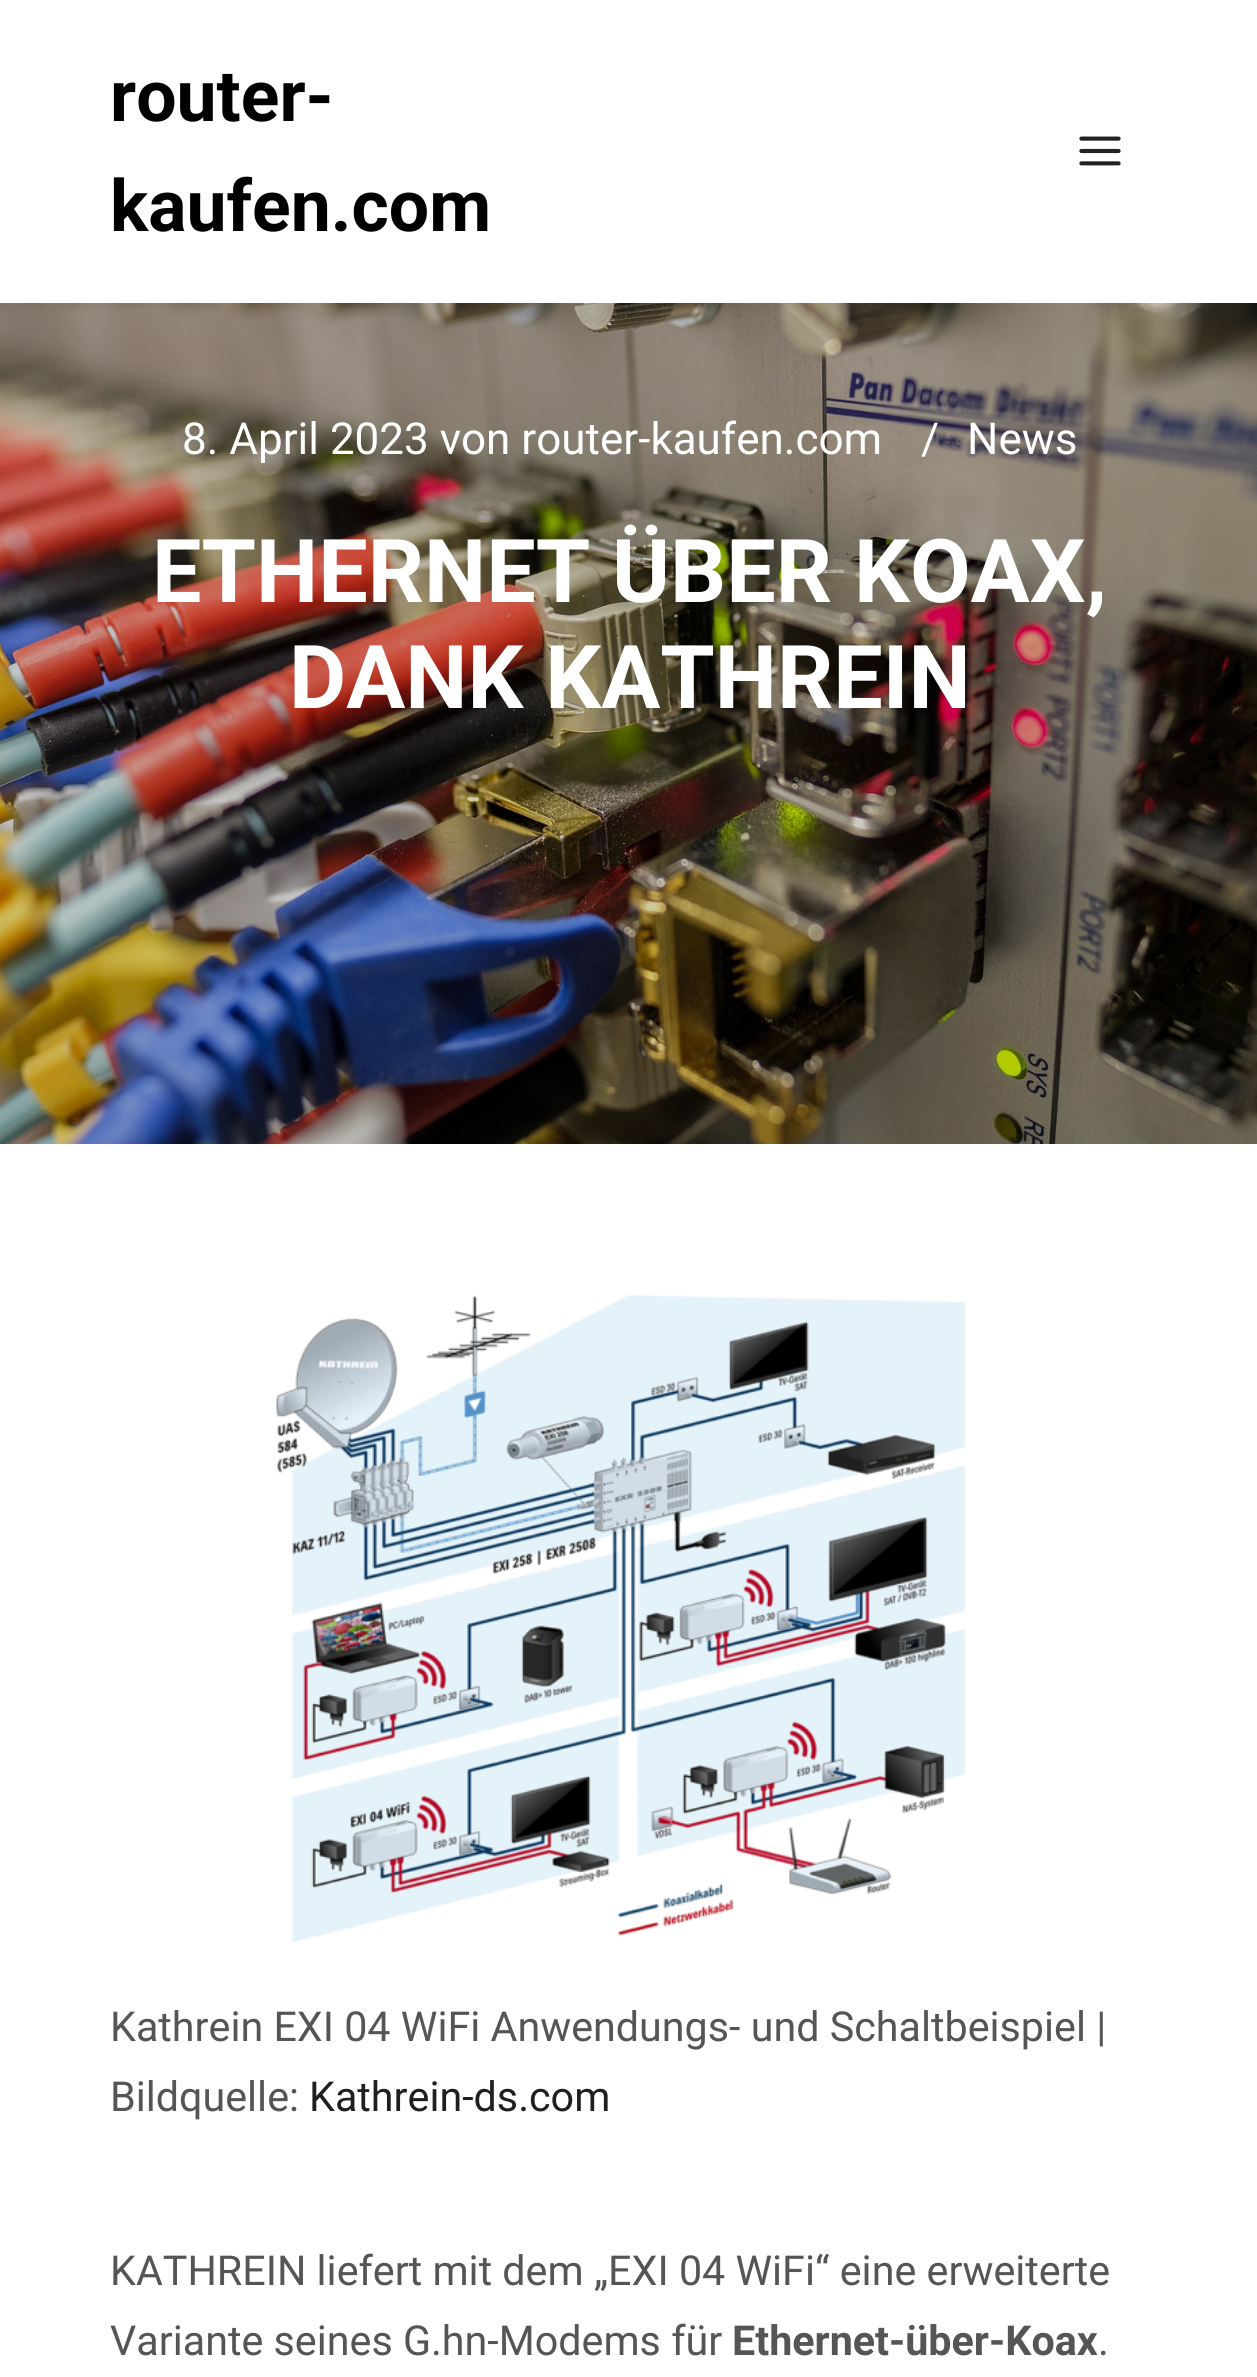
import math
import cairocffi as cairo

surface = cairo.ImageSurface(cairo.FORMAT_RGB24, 1257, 2377)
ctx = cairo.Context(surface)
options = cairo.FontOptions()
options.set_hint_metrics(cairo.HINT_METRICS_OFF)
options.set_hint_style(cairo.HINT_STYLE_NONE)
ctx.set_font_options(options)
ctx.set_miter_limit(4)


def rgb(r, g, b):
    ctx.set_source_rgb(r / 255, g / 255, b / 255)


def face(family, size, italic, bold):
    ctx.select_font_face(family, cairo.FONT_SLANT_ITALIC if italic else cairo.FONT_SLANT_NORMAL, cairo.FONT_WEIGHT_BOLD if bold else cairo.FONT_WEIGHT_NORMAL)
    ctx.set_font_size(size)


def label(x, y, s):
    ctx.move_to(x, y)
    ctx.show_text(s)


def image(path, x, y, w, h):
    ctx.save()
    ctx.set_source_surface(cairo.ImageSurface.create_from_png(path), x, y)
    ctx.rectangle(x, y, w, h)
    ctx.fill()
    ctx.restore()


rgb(255, 255, 255)
ctx.paint()
face('Roboto', 71.5, 0, 1)
rgb(0, 0, 0)
label(110, 121, 'router-')
label(110, 231, 'kaufen.com')
image('image0.png', 1079, 136, 42, 30)
image('image1.png', 0, 303, 1257, 841)
face('Roboto', 44, 0, 0)
rgb(255, 255, 255)
label(182, 454, '8. April 2023 von router-kaufen.com')
label(921, 454, '/')
label(967, 454, 'News')
face('Roboto', 88, 0, 1)
label(152, 602, 'ETHERNET ÜBER KOAX,')
label(289, 708, 'DANK KATHREIN')
image('image2.png', 276, 1294, 690, 649)
face('Roboto', 41.25, 0, 0)
rgb(85, 85, 85)
label(110, 2041, 'Kathrein EXI 04 WiFi Anwendungs- und Schaltbeispiel |')
label(110, 2111, 'Bildquelle:')
rgb(31, 31, 31)
label(309, 2111, 'Kathrein-ds.com')
rgb(85, 85, 85)
label(110, 2285, 'KATHREIN liefert mit dem „EXI 04 WiFi“ eine erweiterte')
label(110, 2355, 'Variante seines G.hn-Modems für')
face('Roboto', 41.25, 0, 1)
label(732, 2355, 'Ethernet-über-Koax')
face('Roboto', 41.25, 0, 0)
label(1098, 2355, '.')
surface.write_to_png('render.png')
